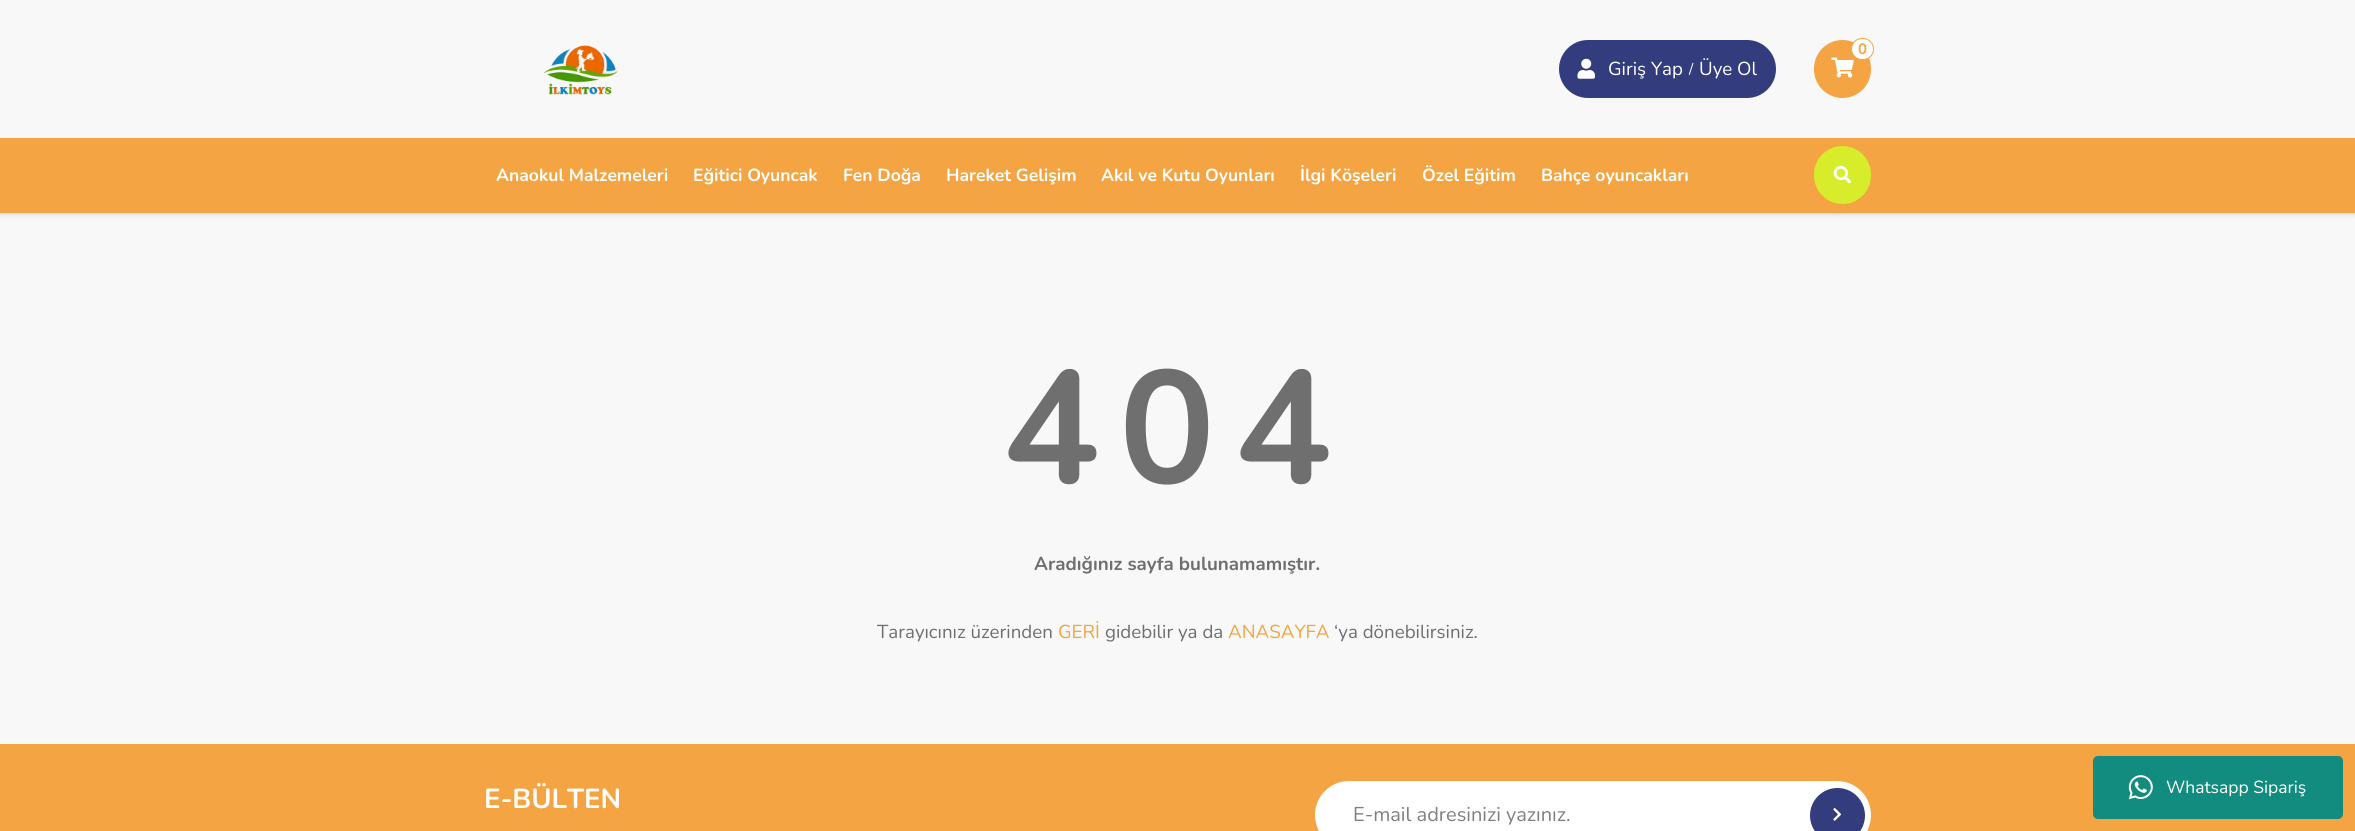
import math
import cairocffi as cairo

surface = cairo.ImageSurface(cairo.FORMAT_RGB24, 2355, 831)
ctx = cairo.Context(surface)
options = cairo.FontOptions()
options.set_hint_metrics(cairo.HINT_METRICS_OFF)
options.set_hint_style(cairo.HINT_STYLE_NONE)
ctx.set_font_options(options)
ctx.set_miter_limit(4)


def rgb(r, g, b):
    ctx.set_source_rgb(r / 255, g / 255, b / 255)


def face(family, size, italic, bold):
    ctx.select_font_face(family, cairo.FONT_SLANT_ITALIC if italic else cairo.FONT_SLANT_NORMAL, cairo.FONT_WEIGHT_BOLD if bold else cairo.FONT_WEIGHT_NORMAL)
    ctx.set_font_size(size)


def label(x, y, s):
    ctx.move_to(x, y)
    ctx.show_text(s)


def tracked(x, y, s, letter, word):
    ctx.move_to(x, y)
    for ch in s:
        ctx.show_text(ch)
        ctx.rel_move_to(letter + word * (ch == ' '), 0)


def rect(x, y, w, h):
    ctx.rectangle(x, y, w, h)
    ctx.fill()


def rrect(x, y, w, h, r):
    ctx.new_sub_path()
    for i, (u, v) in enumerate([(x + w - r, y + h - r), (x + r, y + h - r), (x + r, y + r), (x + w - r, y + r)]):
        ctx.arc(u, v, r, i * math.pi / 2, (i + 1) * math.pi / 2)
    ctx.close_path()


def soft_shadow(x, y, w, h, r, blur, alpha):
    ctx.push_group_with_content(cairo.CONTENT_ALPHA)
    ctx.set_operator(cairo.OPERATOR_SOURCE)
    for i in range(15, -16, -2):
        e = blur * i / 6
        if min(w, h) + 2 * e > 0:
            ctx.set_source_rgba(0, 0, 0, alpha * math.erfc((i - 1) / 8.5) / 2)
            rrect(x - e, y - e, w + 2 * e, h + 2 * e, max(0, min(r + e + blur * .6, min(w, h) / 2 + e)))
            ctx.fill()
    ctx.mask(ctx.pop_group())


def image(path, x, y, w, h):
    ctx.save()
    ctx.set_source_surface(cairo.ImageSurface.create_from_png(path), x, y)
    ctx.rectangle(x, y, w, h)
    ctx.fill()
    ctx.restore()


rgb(248, 248, 248)
ctx.paint()
rgb(0, 0, 0)
soft_shadow(-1, 136, 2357, 78, 0, 3, 0.15)
rgb(248, 248, 248)
rect(0, 132, 2355, 6)
image('image0.png', 543, 45, 75, 50)
rgb(244, 164, 66)
rrect(1814, 40, 57, 58, 28.5)
ctx.fill()
image('image1.png', 1831, 57, 23, 21)
rgb(255, 255, 255)
rrect(1851.5, 38.5, 22, 21, 10.5)
ctx.fill_preserve()
rgb(244, 164, 66)
ctx.set_line_width(1)
ctx.stroke()
face('Nunito', 15, 0, 1)
label(1858, 54, '0')
rgb(51, 61, 125)
rrect(1559, 40, 217, 58, 29)
ctx.fill()
image('image2.png', 1577, 58, 18, 21)
face('Nunito', 18.75, 0, 0)
rgb(255, 255, 255)
label(1608, 75, 'Giriş Yap')
face('Nunito', 15, 0, 0)
label(1689, 74, '/')
face('Nunito', 18.75, 0, 0)
label(1699, 75, 'Üye Ol')
rgb(244, 164, 66)
rect(0, 138, 2355, 75)
face('Nunito', 17.5, 0, 1)
rgb(255, 255, 255)
label(496, 181, 'Anaokul Malzemeleri')
label(693, 181, 'Eğitici Oyuncak')
label(843, 181, 'Fen Doğa')
label(946, 181, 'Hareket Gelişim')
label(1101, 181, 'Akıl ve Kutu Oyunları')
label(1300, 181, 'İlgi Köşeleri')
label(1422, 181, 'Özel Eğitim')
label(1541, 181, 'Bahçe oyuncakları')
rgb(215, 237, 44)
rrect(1814, 146, 57, 58, 28.5)
ctx.fill()
image('image3.png', 1833, 165, 19, 19)
face('Nunito', 160, 0, 1)
rgb(111, 111, 111)
tracked(1003, 483, '404', 20, 0)
face('Nunito', 18.75, 0, 1)
label(1034, 570, 'Aradığınız sayfa bulunamamıştır.')
face('Nunito', 18.75, 0, 0)
label(877, 638, 'Tarayıcınız üzerinden')
rgb(244, 164, 66)
label(1058, 638, 'GERİ')
rgb(111, 111, 111)
label(1105, 638, 'gidebilir ya da')
rgb(244, 164, 66)
label(1228, 638, 'ANASAYFA')
rgb(111, 111, 111)
label(1334, 638, '‘ya dönebilirsiniz.')
rgb(244, 164, 66)
rect(0, 744, 2355, 87)
face('Nunito', 27.5, 0, 1)
rgb(255, 255, 255)
label(484, 808, 'E-BÜLTEN')
rrect(1315, 781, 556, 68, 34)
ctx.fill()
face('Nunito', 20, 0, 0)
rgb(128, 128, 128)
label(1353, 821, 'E-mail adresinizi yazınız.')
rgb(51, 61, 125)
ctx.new_path()
ctx.arc(1837.5, 815.5, 27.5, 0, 2 * math.pi)
ctx.fill()
image('image4.png', 1833, 808, 8, 13)
rgb(18, 140, 126)
rrect(2093, 756, 250, 63, 5)
ctx.fill()
image('image5.png', 2128, 775, 25, 25)
face('Nunito', 17.5, 0, 0)
rgb(255, 255, 255)
label(2166, 793, 'Whatsapp Sipariş')
surface.write_to_png('render.png')
